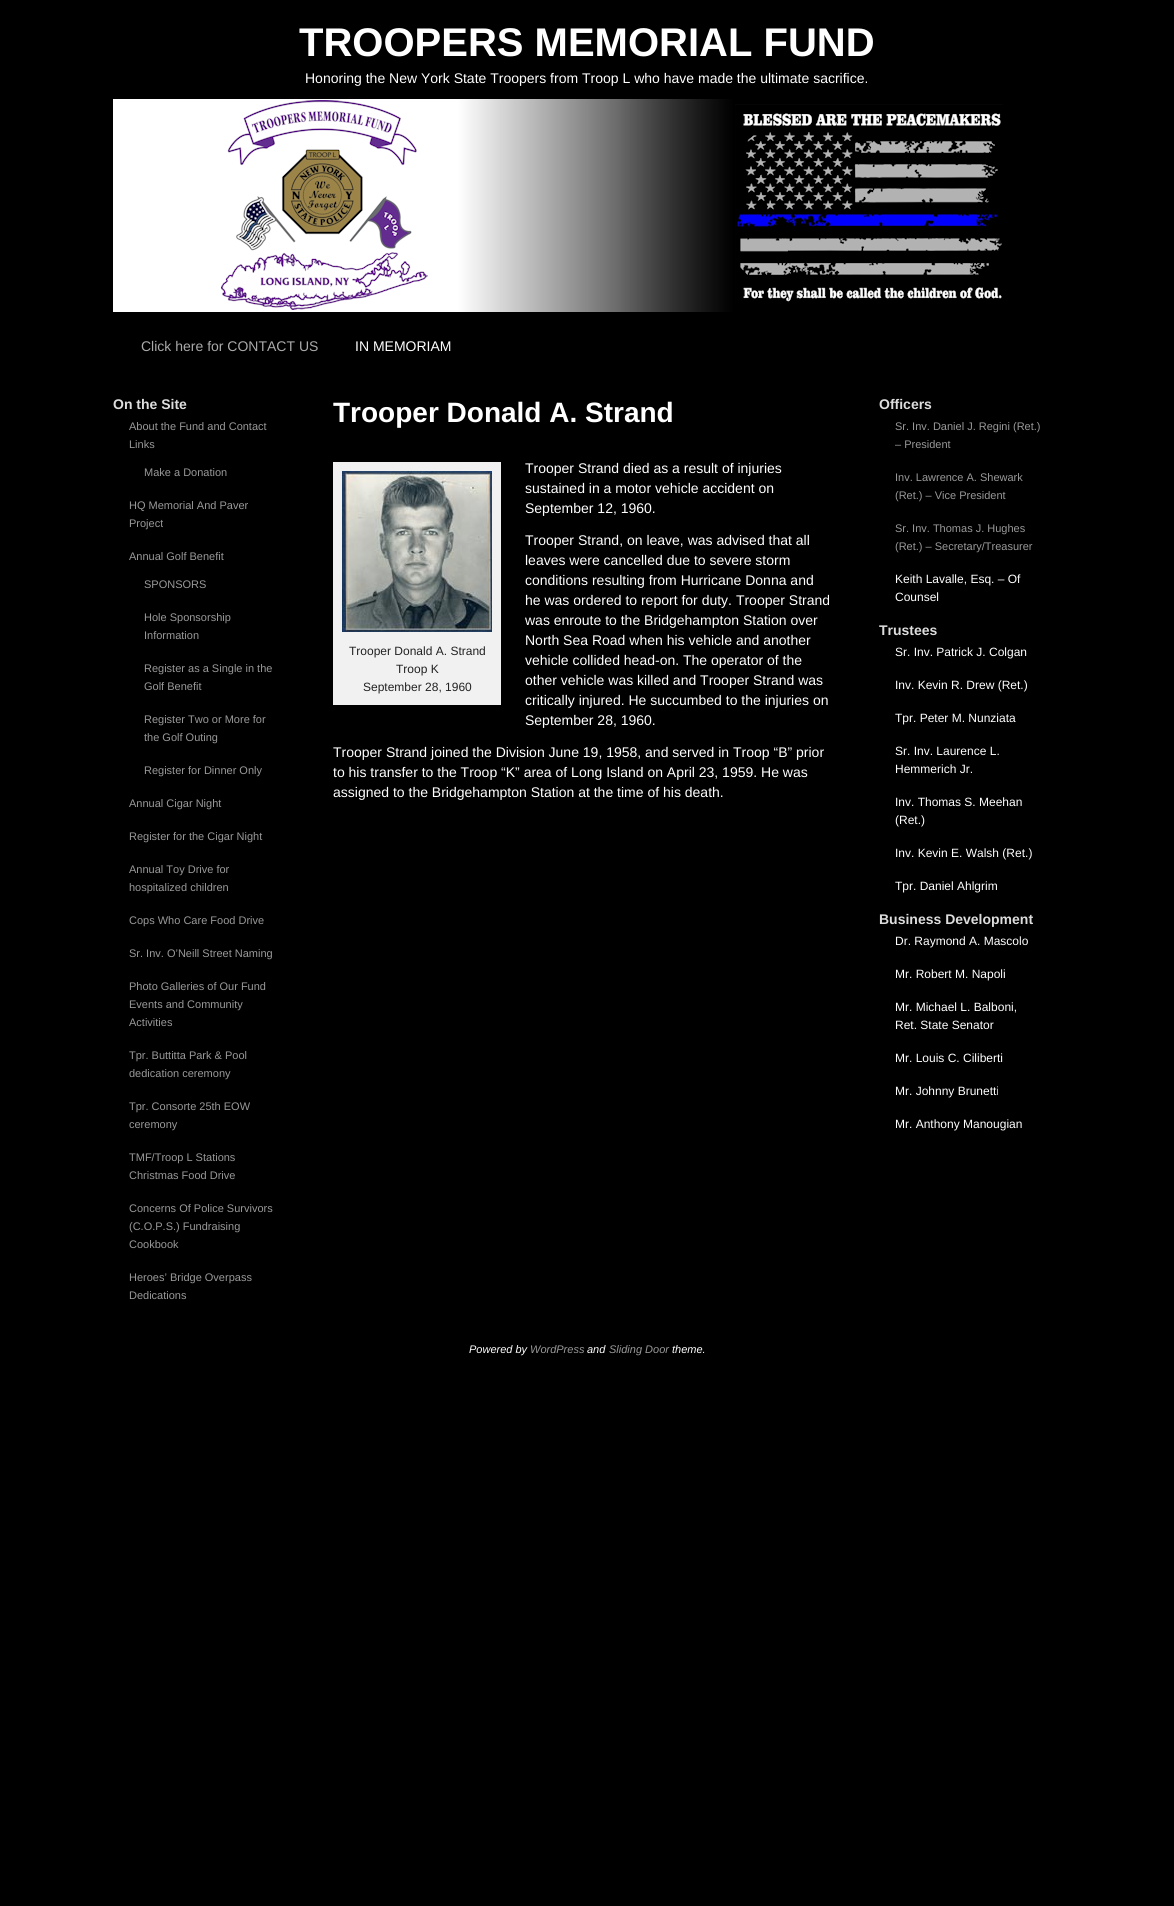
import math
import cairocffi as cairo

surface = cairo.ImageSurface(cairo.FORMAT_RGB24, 1174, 1906)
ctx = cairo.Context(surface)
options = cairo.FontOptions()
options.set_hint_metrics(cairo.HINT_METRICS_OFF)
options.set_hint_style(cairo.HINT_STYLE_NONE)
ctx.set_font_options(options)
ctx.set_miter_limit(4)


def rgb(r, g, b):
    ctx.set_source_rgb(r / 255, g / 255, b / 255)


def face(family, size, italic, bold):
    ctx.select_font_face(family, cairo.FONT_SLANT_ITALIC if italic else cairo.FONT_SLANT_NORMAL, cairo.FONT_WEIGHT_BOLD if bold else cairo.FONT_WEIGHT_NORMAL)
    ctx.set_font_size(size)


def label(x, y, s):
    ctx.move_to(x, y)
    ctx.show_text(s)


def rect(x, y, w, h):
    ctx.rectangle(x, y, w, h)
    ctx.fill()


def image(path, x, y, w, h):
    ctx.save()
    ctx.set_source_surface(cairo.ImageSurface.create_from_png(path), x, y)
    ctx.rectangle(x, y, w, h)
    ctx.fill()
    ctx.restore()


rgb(0, 0, 0)
ctx.paint()
face('Liberation Sans', 40, 0, 1)
rgb(255, 255, 255)
label(299, 56, 'TROOPERS MEMORIAL FUND')
face('Liberation Sans', 14, 0, 0)
label(305, 83, 'Honoring the New York State Troopers from Troop L who have made the ultimate sacrifice.')
image('image0.png', 113, 99, 890, 213)
rgb(170, 170, 170)
label(141, 351, 'Click here for CONTACT US')
rgb(255, 255, 255)
label(355, 351, 'IN MEMORIAM')
face('Liberation Sans', 14, 0, 1)
rgb(221, 221, 221)
label(113, 409, 'On the Site')
face('Liberation Sans', 11, 0, 0)
rgb(153, 153, 153)
label(129, 430, 'About the Fund and Contact')
label(129, 448, 'Links')
label(144, 476, 'Make a Donation')
label(129, 509, 'HQ Memorial And Paver')
label(129, 527, 'Project')
label(129, 560, 'Annual Golf Benefit')
label(144, 588, 'SPONSORS')
label(144, 621, 'Hole Sponsorship')
label(144, 639, 'Information')
label(144, 672, 'Register as a Single in the')
label(144, 690, 'Golf Benefit')
label(144, 723, 'Register Two or More for')
label(144, 741, 'the Golf Outing')
label(144, 774, 'Register for Dinner Only')
label(129, 807, 'Annual Cigar Night')
label(129, 840, 'Register for the Cigar Night')
label(129, 873, 'Annual Toy Drive for')
label(129, 891, 'hospitalized children')
label(129, 924, 'Cops Who Care Food Drive')
label(129, 957, 'Sr. Inv. O’Neill Street Naming')
label(129, 990, 'Photo Galleries of Our Fund')
label(129, 1008, 'Events and Community')
label(129, 1026, 'Activities')
label(129, 1059, 'Tpr. Buttitta Park & Pool')
label(129, 1077, 'dedication ceremony')
label(129, 1110, 'Tpr. Consorte 25th EOW')
label(129, 1128, 'ceremony')
label(129, 1161, 'TMF/Troop L Stations')
label(129, 1179, 'Christmas Food Drive')
label(129, 1212, 'Concerns Of Police Survivors')
label(129, 1230, '(C.O.P.S.) Fundraising')
label(129, 1248, 'Cookbook')
label(129, 1281, 'Heroes’ Bridge Overpass')
label(129, 1299, 'Dedications')
face('Liberation Sans', 28, 0, 1)
rgb(255, 255, 255)
label(333, 422, 'Trooper Donald A. Strand')
face('Liberation Sans', 14, 0, 0)
label(525, 473, 'Trooper Strand died as a result of injuries')
label(525, 493, 'sustained in a motor vehicle accident on')
label(525, 513, 'September 12, 1960.')
rgb(241, 241, 241)
rect(333, 462, 168, 243)
image('image1.png', 342, 471, 150, 161)
face('Liberation Sans', 12, 0, 0)
rgb(34, 34, 34)
label(349, 655, 'Trooper Donald A. Strand')
label(396, 673, 'Troop K')
label(363, 691, 'September 28, 1960')
face('Liberation Sans', 14, 0, 0)
rgb(255, 255, 255)
label(525, 545, 'Trooper Strand, on leave, was advised that all')
label(525, 565, 'leaves were cancelled due to severe storm')
label(525, 585, 'conditions resulting from Hurricane Donna and')
label(525, 605, 'he was ordered to report for duty. Trooper Strand')
label(525, 625, 'was enroute to the Bridgehampton Station over')
label(525, 645, 'North Sea Road when his vehicle and another')
label(525, 665, 'vehicle collided head-on. The operator of the')
label(525, 685, 'other vehicle was killed and Trooper Strand was')
label(525, 705, 'critically injured. He succumbed to the injuries on')
label(525, 725, 'September 28, 1960.')
label(333, 757, 'Trooper Strand joined the Division June 19, 1958, and served in Troop “B” prior')
label(333, 777, 'to his transfer to the Troop “K” area of Long Island on April 23, 1959. He was')
label(333, 797, 'assigned to the Bridgehampton Station at the time of his death.')
face('Liberation Sans', 14, 0, 1)
rgb(221, 221, 221)
label(879, 409, 'Officers')
face('Liberation Sans', 11, 0, 0)
rgb(153, 153, 153)
label(895, 430, 'Sr. Inv. Daniel J. Regini (Ret.)')
label(895, 448, '– President')
label(895, 481, 'Inv. Lawrence A. Shewark')
label(895, 499, '(Ret.) – Vice President')
label(895, 532, 'Sr. Inv. Thomas J. Hughes')
label(895, 550, '(Ret.) – Secretary/Treasurer')
face('Liberation Sans', 12, 0, 0)
rgb(255, 255, 255)
label(895, 583, 'Keith Lavalle, Esq. – Of')
label(895, 601, 'Counsel')
face('Liberation Sans', 14, 0, 1)
rgb(221, 221, 221)
label(879, 635, 'Trustees')
face('Liberation Sans', 12, 0, 0)
rgb(255, 255, 255)
label(895, 656, 'Sr. Inv. Patrick J. Colgan')
label(895, 689, 'Inv. Kevin R. Drew (Ret.)')
label(895, 722, 'Tpr. Peter M. Nunziata')
label(895, 755, 'Sr. Inv. Laurence L.')
label(895, 773, 'Hemmerich Jr.')
label(895, 806, 'Inv. Thomas S. Meehan')
label(895, 824, '(Ret.)')
label(895, 857, 'Inv. Kevin E. Walsh (Ret.)')
label(895, 890, 'Tpr. Daniel Ahlgrim')
face('Liberation Sans', 14, 0, 1)
rgb(221, 221, 221)
label(879, 924, 'Business Development')
face('Liberation Sans', 12, 0, 0)
rgb(255, 255, 255)
label(895, 945, 'Dr. Raymond A. Mascolo')
label(895, 978, 'Mr. Robert M. Napoli')
label(895, 1011, 'Mr. Michael L. Balboni,')
label(895, 1029, 'Ret. State Senator')
label(895, 1062, 'Mr. Louis C. Ciliberti')
label(895, 1095, 'Mr. Johnny Brunetti')
label(895, 1128, 'Mr. Anthony Manougian')
face('Liberation Sans', 11, 1, 0)
label(469, 1353, 'Powered by')
rgb(153, 153, 153)
label(530, 1353, 'WordPress')
rgb(255, 255, 255)
label(587, 1353, 'and')
rgb(153, 153, 153)
label(609, 1353, 'Sliding Door')
rgb(255, 255, 255)
label(672, 1353, 'theme.')
surface.write_to_png('render.png')
